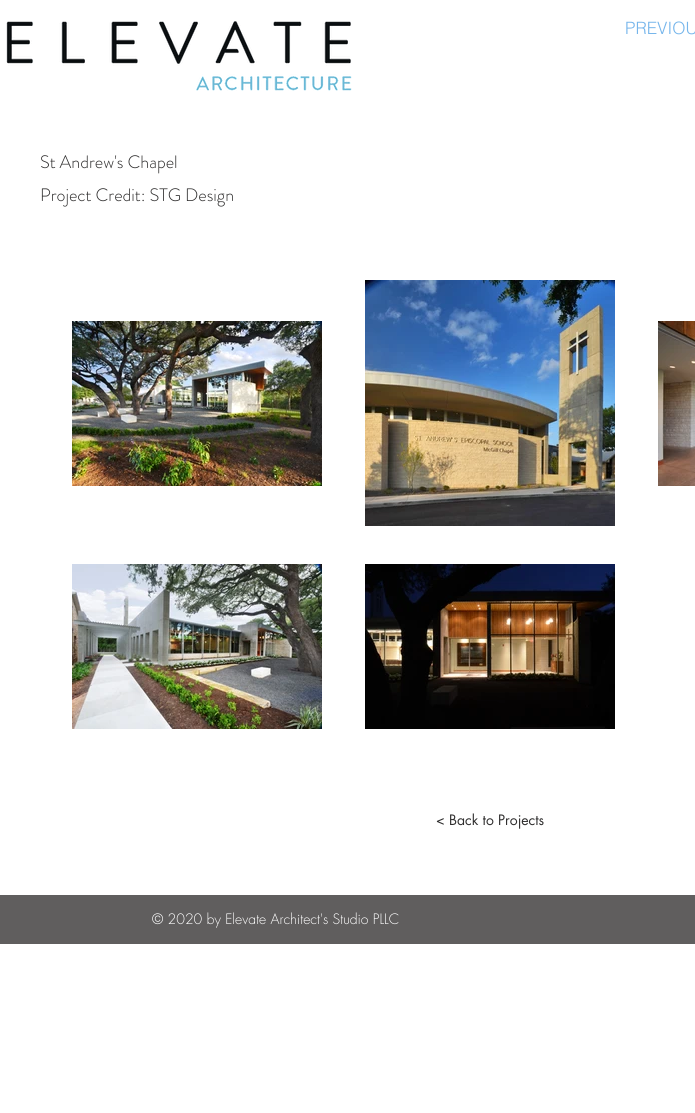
import math
import cairocffi as cairo

surface = cairo.ImageSurface(cairo.FORMAT_RGB24, 695, 1113)
ctx = cairo.Context(surface)
options = cairo.FontOptions()
options.set_hint_metrics(cairo.HINT_METRICS_OFF)
options.set_hint_style(cairo.HINT_STYLE_NONE)
ctx.set_font_options(options)
ctx.set_miter_limit(4)


def rgb(r, g, b):
    ctx.set_source_rgb(r / 255, g / 255, b / 255)


def face(family, size, italic, bold):
    ctx.select_font_face(family, cairo.FONT_SLANT_ITALIC if italic else cairo.FONT_SLANT_NORMAL, cairo.FONT_WEIGHT_BOLD if bold else cairo.FONT_WEIGHT_NORMAL)
    ctx.set_font_size(size)


def label(x, y, s):
    ctx.move_to(x, y)
    ctx.show_text(s)


def rect(x, y, w, h):
    ctx.rectangle(x, y, w, h)
    ctx.fill()


def image(path, x, y, w, h):
    ctx.save()
    ctx.set_source_surface(cairo.ImageSurface.create_from_png(path), x, y)
    ctx.rectangle(x, y, w, h)
    ctx.fill()
    ctx.restore()


rgb(255, 255, 255)
ctx.paint()
image('image0.png', 6, 21, 346, 70)
face('helvetica Light', 17, 0, 0)
rgb(117, 181, 235)
label(625, 34, 'PREVIOU')
face('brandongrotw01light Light', 18, 0, 0)
rgb(47, 46, 46)
label(40, 168, 'St Andrew\'s Chapel')
label(40, 201, 'Project Credit: STG Design')
image('image1.png', 72, 321, 250, 165)
image('image2.png', 365, 280, 250, 246)
image('image3.png', 658, 321, 37, 165)
image('image4.png', 72, 564, 250, 165)
image('image5.png', 365, 564, 250, 165)
face('futura', 14, 0, 0)
label(436, 825, '< Back to Projects')
rgb(96, 94, 94)
rect(0, 895, 695, 49)
face('futura Light', 14, 0, 0)
rgb(255, 255, 255)
label(152, 924, '© 2020 by Elevate Architect\'s Studio PLLC')
surface.write_to_png('render.png')
